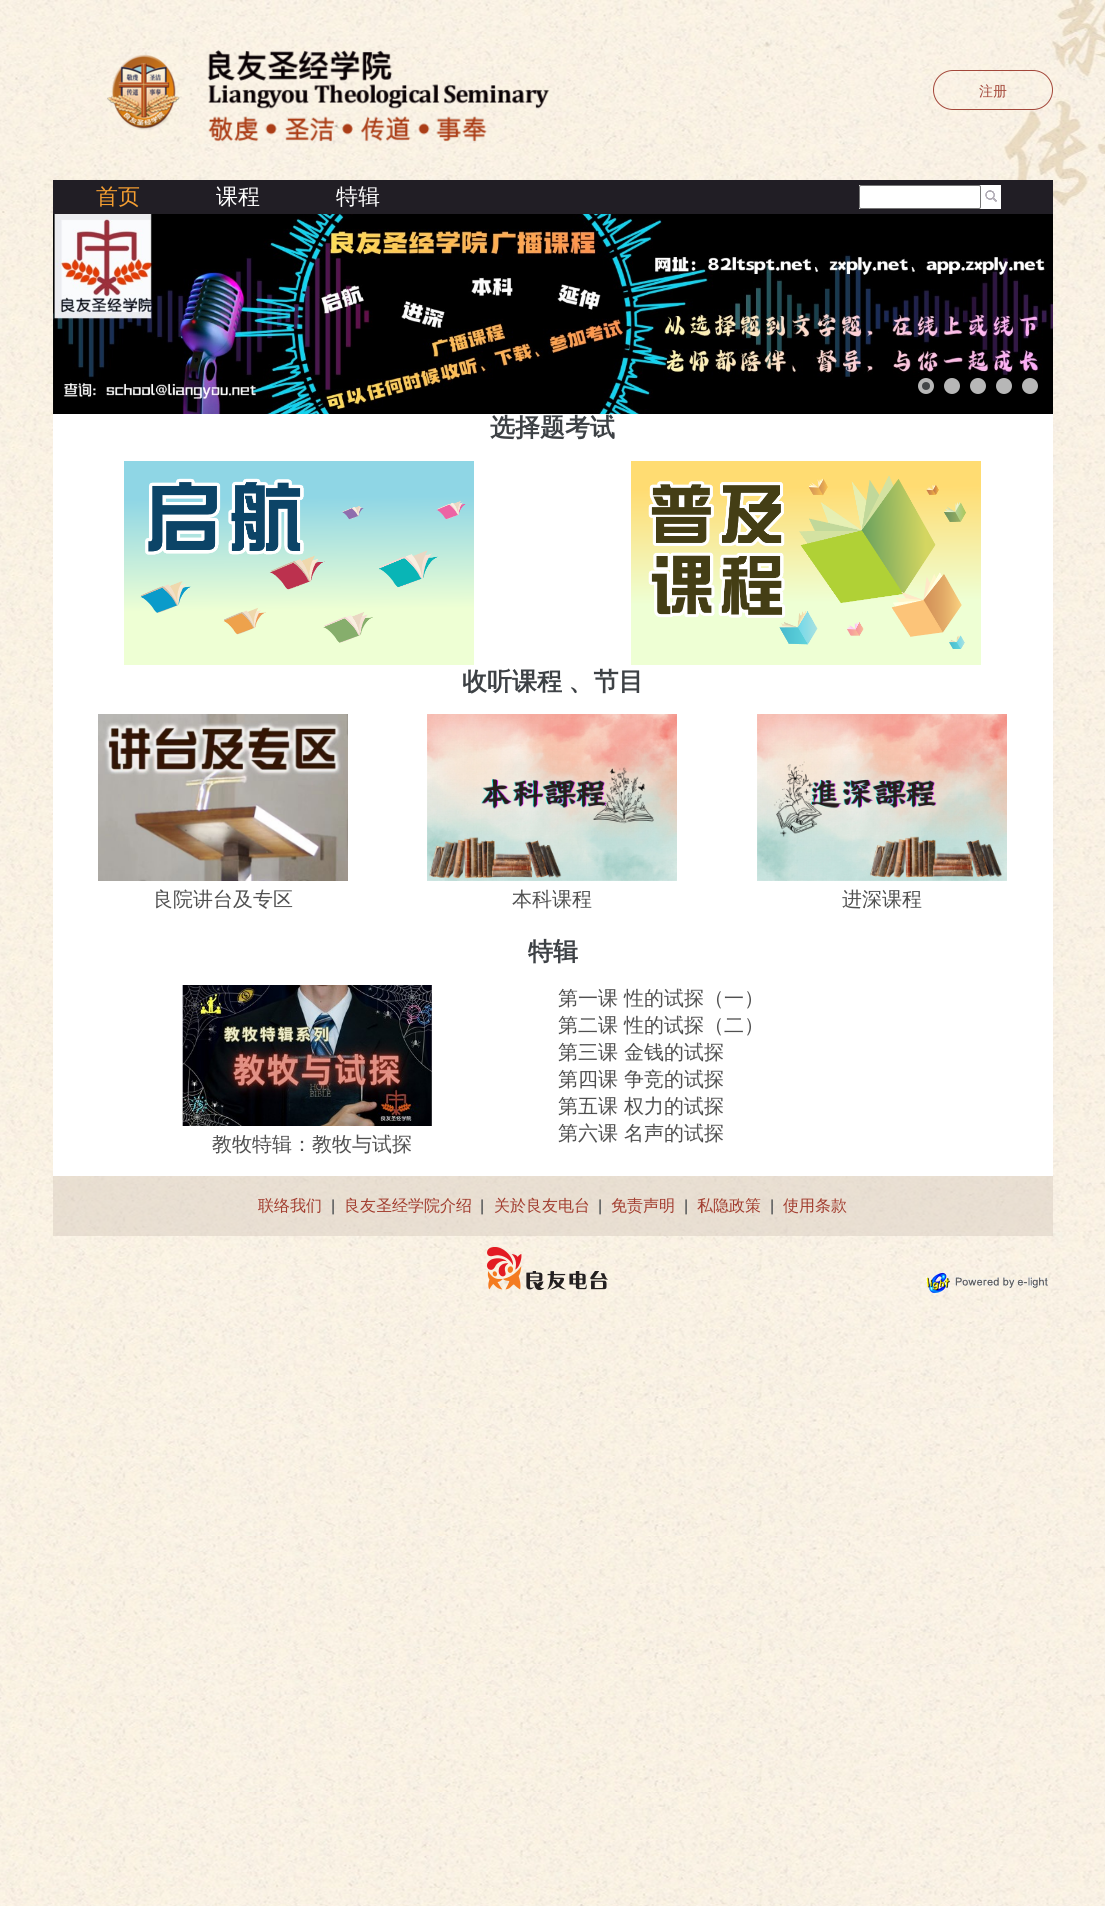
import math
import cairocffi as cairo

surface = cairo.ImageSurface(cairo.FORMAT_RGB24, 1105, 1906)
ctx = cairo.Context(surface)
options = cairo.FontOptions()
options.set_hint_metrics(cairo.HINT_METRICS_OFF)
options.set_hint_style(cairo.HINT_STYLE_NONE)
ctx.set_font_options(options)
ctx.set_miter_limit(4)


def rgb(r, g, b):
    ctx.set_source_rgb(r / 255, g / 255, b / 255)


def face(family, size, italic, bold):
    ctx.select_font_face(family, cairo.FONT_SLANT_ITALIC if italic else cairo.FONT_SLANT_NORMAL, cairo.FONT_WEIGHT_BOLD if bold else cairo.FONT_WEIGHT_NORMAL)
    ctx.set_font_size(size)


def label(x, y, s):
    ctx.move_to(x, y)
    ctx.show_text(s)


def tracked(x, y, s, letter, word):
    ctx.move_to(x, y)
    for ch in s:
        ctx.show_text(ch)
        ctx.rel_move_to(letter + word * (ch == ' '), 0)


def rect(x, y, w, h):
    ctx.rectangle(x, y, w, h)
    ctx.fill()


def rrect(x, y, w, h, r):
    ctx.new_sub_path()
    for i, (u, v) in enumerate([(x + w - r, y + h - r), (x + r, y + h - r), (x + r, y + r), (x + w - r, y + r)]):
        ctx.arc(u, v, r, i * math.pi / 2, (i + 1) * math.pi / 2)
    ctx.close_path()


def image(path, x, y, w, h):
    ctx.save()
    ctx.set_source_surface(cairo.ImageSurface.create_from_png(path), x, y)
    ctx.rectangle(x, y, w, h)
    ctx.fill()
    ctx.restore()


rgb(255, 255, 255)
ctx.paint()
image('image0.png', 0, 308, 1105, 1598)
image('image1.png', 0, 0, 1105, 308)
image('image2.png', 107, 54, 73, 76)
image('image3.png', 207, 50, 343, 59)
image('image4.png', 208, 116, 279, 26)
rrect(933.5, 70.5, 119, 39, 19.5)
rgb(163, 71, 58)
ctx.set_line_width(1)
ctx.stroke()
face('WenQuanYi Zen Hei Medium', 14, 0, 0)
label(979, 96, '注册')
rgb(33, 30, 37)
rect(53, 180, 1000, 34)
face('WenQuanYi Zen Hei Medium', 22, 0, 0)
rgb(244, 158, 49)
label(96, 204, '首页')
rgb(255, 255, 255)
label(216, 204, '课程')
label(336, 204, '特辑')
rect(859, 185, 142, 24)
rrect(859.5, 185.5, 121, 23, 1.5)
rgb(118, 118, 118)
ctx.stroke()
image('image5.png', 985, 190, 12, 12)
image('image6.png', 53, 214, 1000, 200)
rgb(183, 183, 183)
ctx.arc(926, 386, 8, 0, 2 * math.pi)
ctx.fill()
rgb(67, 70, 72)
ctx.arc(926, 386, 4, 0, 2 * math.pi)
ctx.fill()
rgb(183, 183, 183)
ctx.arc(952, 386, 8, 0, 2 * math.pi)
ctx.fill()
ctx.arc(978, 386, 8, 0, 2 * math.pi)
ctx.fill()
ctx.arc(1004, 386, 8, 0, 2 * math.pi)
ctx.fill()
ctx.arc(1030, 386, 8, 0, 2 * math.pi)
ctx.fill()
rgb(255, 255, 255)
rect(53, 414, 1000, 762)
face('WenQuanYi Zen Hei', 25, 0, 1)
rgb(61, 65, 69)
label(490, 436, '选择题考试')
image('image7.png', 124, 461, 350, 204)
image('image8.png', 631, 461, 350, 204)
tracked(462, 690, '收听课程 、节目', 0, -1)
image('image9.png', 98, 714, 250, 167)
face('WenQuanYi Zen Hei Medium', 20, 0, 0)
rgb(80, 80, 80)
label(153, 906, '良院讲台及专区')
image('image10.png', 427, 714, 250, 167)
label(512, 906, '本科课程')
image('image11.png', 757, 714, 250, 167)
label(842, 906, '进深课程')
face('WenQuanYi Zen Hei', 25, 0, 1)
rgb(61, 65, 69)
label(528, 960, '特辑')
image('image12.png', 182, 985, 250, 141)
face('WenQuanYi Zen Hei Medium', 20, 0, 0)
rgb(80, 80, 80)
label(212, 1151, '教牧特辑：教牧与试探')
label(558, 1005, '第一课 性的试探（一）')
label(558, 1032, '第二课 性的试探（二）')
label(558, 1059, '第三课 金钱的试探')
label(558, 1086, '第四课 争竞的试探')
label(558, 1113, '第五课 权力的试探')
label(558, 1140, '第六课 名声的试探')
ctx.set_source_rgba(0.851, 0.804, 0.757, 0.5)
rect(53, 1176, 1000, 60)
face('WenQuanYi Zen Hei Medium', 16, 0, 0)
rgb(162, 61, 47)
label(258, 1211, '联络我们')
face('Liberation Sans', 16, 0, 0)
rgb(61, 65, 69)
label(331, 1211, '|')
face('WenQuanYi Zen Hei Medium', 16, 0, 0)
rgb(162, 61, 47)
label(344, 1211, '良友圣经学院介绍')
face('Liberation Sans', 16, 0, 0)
rgb(61, 65, 69)
label(480, 1211, '|')
face('WenQuanYi Zen Hei Medium', 16, 0, 0)
rgb(162, 61, 47)
label(494, 1211, '关於良友电台')
face('Liberation Sans', 16, 0, 0)
rgb(61, 65, 69)
label(598, 1211, '|')
face('WenQuanYi Zen Hei Medium', 16, 0, 0)
rgb(162, 61, 47)
label(611, 1211, '免责声明')
face('Liberation Sans', 16, 0, 0)
rgb(61, 65, 69)
label(684, 1211, '|')
face('WenQuanYi Zen Hei Medium', 16, 0, 0)
rgb(162, 61, 47)
label(697, 1211, '私隐政策')
face('Liberation Sans', 16, 0, 0)
rgb(61, 65, 69)
label(770, 1211, '|')
face('WenQuanYi Zen Hei Medium', 16, 0, 0)
rgb(162, 61, 47)
label(783, 1211, '使用条款')
image('image13.png', 487, 1247, 121, 43)
image('image14.png', 926, 1272, 122, 22)
surface.write_to_png('render.png')
